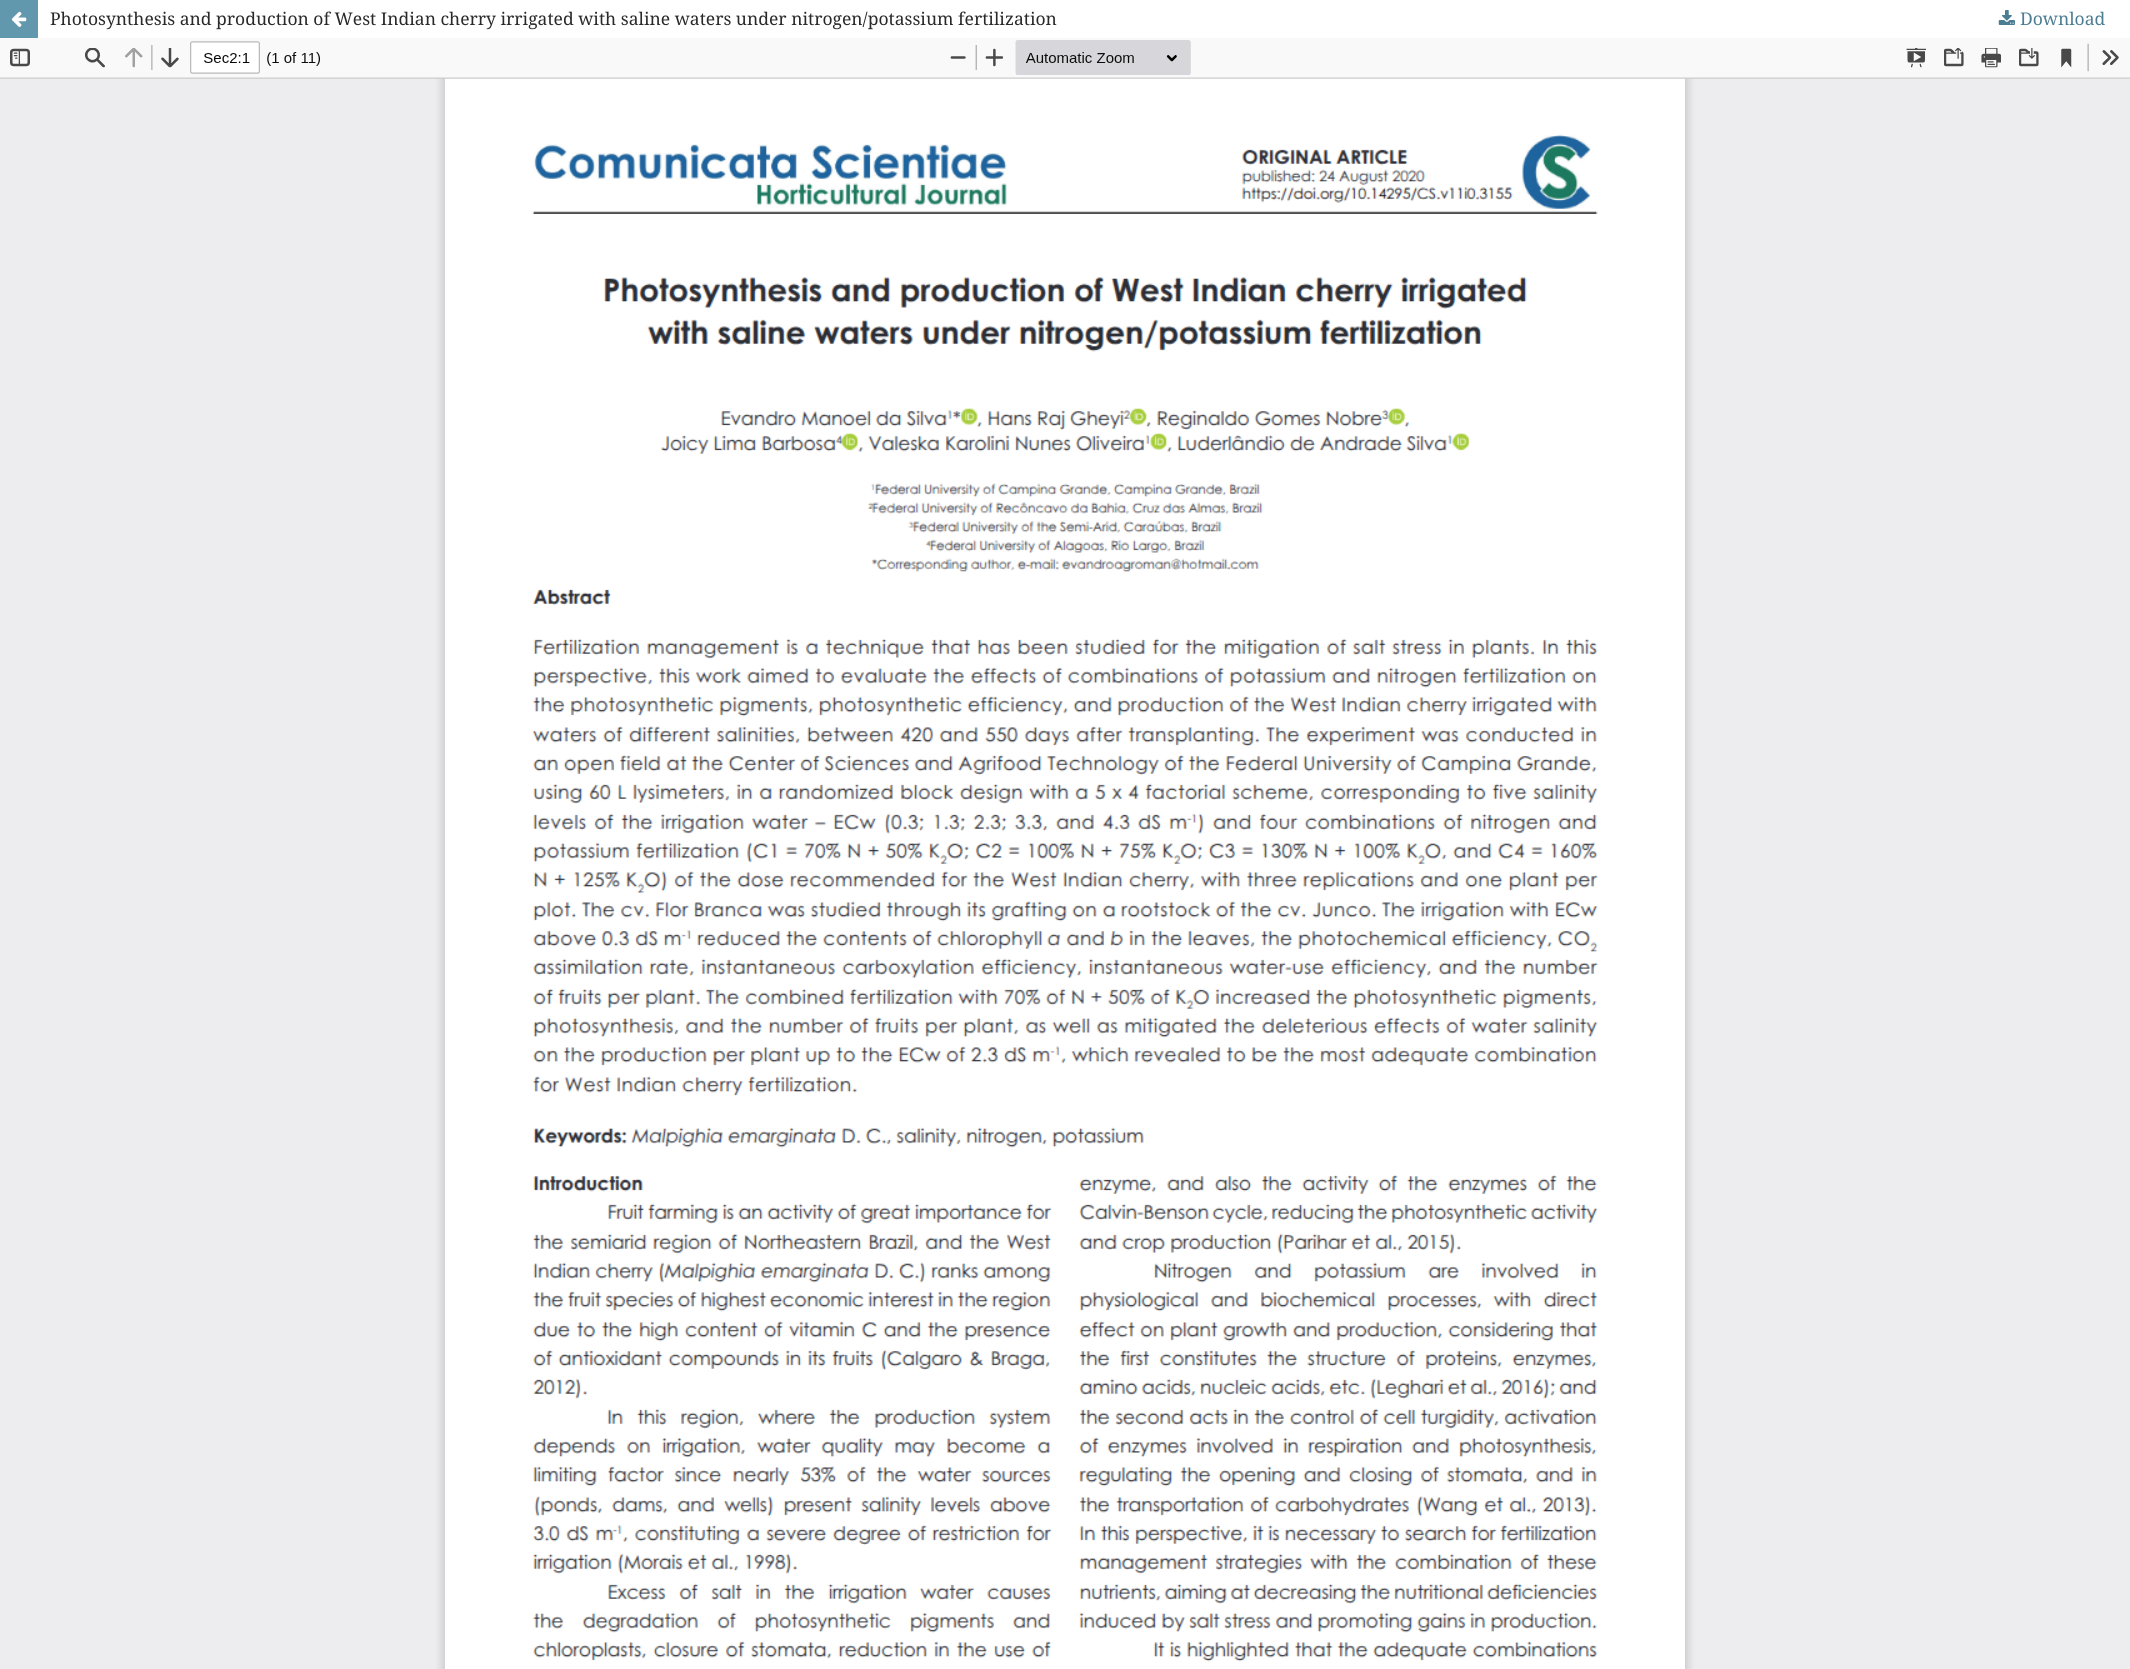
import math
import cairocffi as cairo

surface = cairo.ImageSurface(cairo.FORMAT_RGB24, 2130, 1669)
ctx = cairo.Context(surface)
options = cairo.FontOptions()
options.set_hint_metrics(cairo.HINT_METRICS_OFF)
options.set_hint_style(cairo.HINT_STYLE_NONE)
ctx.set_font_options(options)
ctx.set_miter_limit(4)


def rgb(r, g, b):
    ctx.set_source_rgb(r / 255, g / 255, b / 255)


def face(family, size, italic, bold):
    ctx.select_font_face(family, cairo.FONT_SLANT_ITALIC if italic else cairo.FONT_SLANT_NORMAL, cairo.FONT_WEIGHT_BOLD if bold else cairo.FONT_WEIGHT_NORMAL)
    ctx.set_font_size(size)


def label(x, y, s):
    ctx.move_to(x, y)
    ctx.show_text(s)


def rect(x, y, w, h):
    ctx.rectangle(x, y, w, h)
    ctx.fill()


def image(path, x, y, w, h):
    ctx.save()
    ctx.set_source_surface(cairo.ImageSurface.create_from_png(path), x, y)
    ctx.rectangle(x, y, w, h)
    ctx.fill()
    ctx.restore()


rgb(255, 255, 255)
ctx.paint()
rgb(98, 152, 174)
rect(0, 0, 38, 38)
image('image0.png', 11, 11, 16, 16)
face('Noto Serif', 17.5, 0, 0)
rgb(41, 41, 41)
label(50, 25, 'Photosynthesis and production of West Indian cherry irrigated with saline waters under nitrogen/potassium fertilization')
image('image1.png', 1998, 10, 17, 15)
rgb(75, 125, 146)
label(2020, 25, 'Download')
image('image2.png', 0, 38, 2130, 1631)
surface.write_to_png('render.png')
